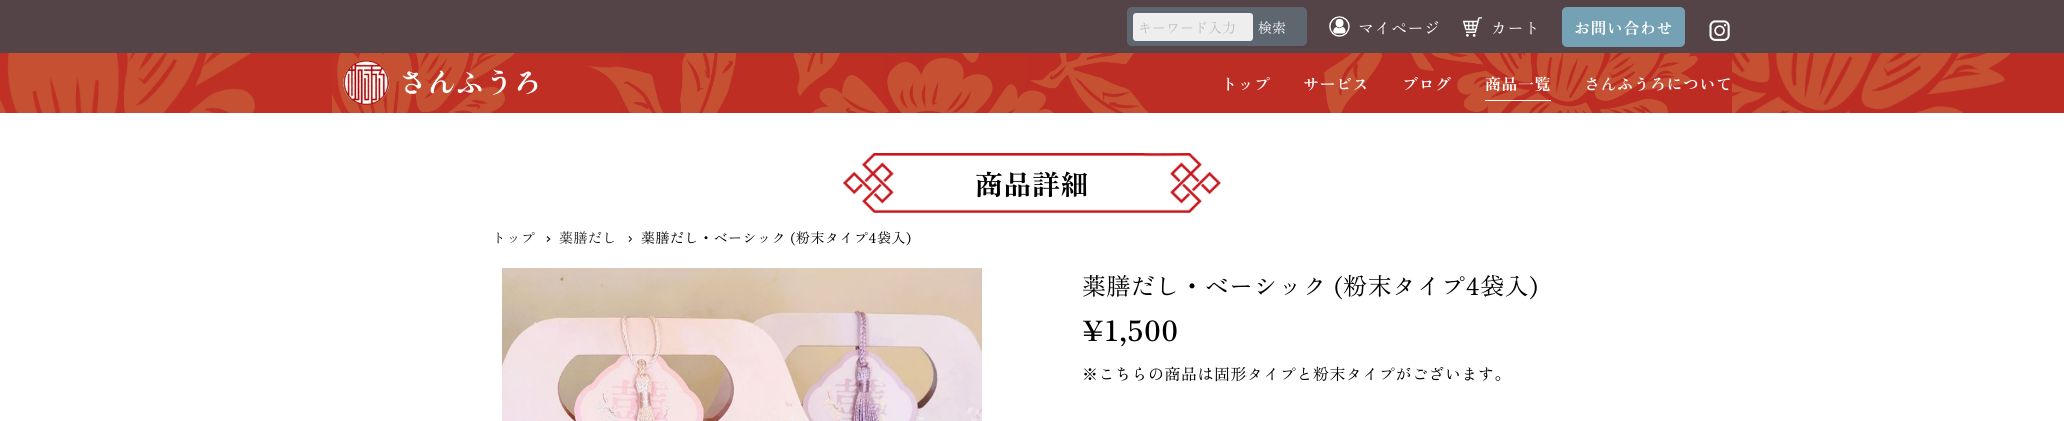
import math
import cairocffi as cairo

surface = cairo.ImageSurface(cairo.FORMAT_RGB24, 2064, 421)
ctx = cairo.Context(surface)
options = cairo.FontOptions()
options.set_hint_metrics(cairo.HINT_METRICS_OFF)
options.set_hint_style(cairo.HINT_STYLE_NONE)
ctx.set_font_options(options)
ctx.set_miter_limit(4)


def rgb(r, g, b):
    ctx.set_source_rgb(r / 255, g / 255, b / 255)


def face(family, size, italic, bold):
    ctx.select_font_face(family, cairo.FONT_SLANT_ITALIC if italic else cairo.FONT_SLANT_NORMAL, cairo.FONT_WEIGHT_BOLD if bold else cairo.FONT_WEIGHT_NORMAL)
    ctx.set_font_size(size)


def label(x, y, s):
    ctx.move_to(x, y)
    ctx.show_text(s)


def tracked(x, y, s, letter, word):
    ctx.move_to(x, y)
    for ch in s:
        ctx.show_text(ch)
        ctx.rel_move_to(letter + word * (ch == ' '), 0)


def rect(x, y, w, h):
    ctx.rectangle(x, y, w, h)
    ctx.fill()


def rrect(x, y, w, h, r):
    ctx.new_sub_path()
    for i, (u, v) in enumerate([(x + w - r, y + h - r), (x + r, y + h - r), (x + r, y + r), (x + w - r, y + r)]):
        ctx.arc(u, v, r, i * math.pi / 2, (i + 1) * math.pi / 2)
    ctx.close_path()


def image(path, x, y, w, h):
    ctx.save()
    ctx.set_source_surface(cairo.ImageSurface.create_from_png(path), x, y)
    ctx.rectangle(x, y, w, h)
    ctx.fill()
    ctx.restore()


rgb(255, 255, 255)
ctx.paint()
rgb(85, 68, 71)
rect(0, 0, 2064, 53)
rgb(94, 103, 112)
rrect(1127, 7, 180, 39, 5)
ctx.fill()
rgb(238, 238, 238)
rrect(1133, 13, 120, 28, 3)
ctx.fill()
face('Zen Old Mincho', 14, 0, 0)
rgb(189, 189, 189)
label(1138, 33, 'キーワード入力')
rgb(255, 255, 255)
label(1258, 33, '検索')
image('image0.png', 1329, 16, 21, 21)
face('Zen Old Mincho', 16, 0, 0)
tracked(1358, 34, 'マイページ', 0.5, 0)
image('image1.png', 1463, 17, 19, 20)
tracked(1491, 34, 'カート', 0.5, 0)
rgb(116, 161, 179)
rrect(1562, 7, 123, 40, 5)
ctx.fill()
face('Zen Old Mincho', 16, 0, 1)
rgb(255, 255, 255)
tracked(1574, 34, 'お問い合わせ', 0.5, 0)
image('image2.png', 1709, 20, 21, 21)
rgb(191, 55, 42)
rect(0, 53, 2064, 60)
image('image3.png', 0, 53, 2064, 60)
rect(332, 53, 1400, 60)
image('image4.png', 332, 53, 1400, 60)
image('image5.png', 343, 60, 195, 45)
rgb(255, 255, 255)
tracked(1221, 90, 'トップ', 0.5, 0)
tracked(1303, 90, 'サービス', 0.5, 0)
tracked(1402, 90, 'ブログ', 0.5, 0)
tracked(1485, 90, '商品一覧', 0.5, 0)
rect(1485, 100, 66, 1)
tracked(1584, 90, 'さんふうろについて', 0.5, 0)
image('image6.png', 843, 153, 378, 60)
face('Zen Old Mincho', 28, 0, 1)
rgb(0, 0, 0)
tracked(975, 195, '商品詳細', 0.5, 0)
face('Zen Old Mincho', 14, 0, 0)
rgb(28, 28, 28)
tracked(492, 243, 'トップ', 0.5, 0)
ctx.new_path()
ctx.move_to(547.5, 236)
ctx.line_to(550.5, 239)
ctx.line_to(549.5, 239.5)
ctx.line_to(546.5, 237)
ctx.close_path()
ctx.fill()
ctx.new_path()
ctx.move_to(549.5, 238.5)
ctx.line_to(550.5, 239)
ctx.line_to(547.5, 242)
ctx.line_to(546.5, 241)
ctx.close_path()
ctx.fill()
tracked(559, 243, '薬膳だし', 0.5, 0)
ctx.new_path()
ctx.move_to(629.5, 236)
ctx.line_to(632, 239)
ctx.line_to(631.5, 239.5)
ctx.line_to(628.5, 237)
ctx.close_path()
ctx.fill()
ctx.new_path()
ctx.move_to(631.5, 238.5)
ctx.line_to(632, 239)
ctx.line_to(629.5, 242)
ctx.line_to(628.5, 241)
ctx.close_path()
ctx.fill()
rgb(0, 0, 0)
tracked(641, 243, '薬膳だし・ベーシック (粉末タイプ4袋入)', 0.5, 0)
image('image7.png', 502, 268, 480, 153)
face('Zen Old Mincho', 24, 0, 0)
tracked(1082, 295, '薬膳だし・ベーシック (粉末タイプ4袋入)', 0.5, 0)
face('Zen Old Mincho', 28, 0, 1)
tracked(1082, 341, '¥1,500', 0.5, 0)
face('Zen Old Mincho', 16, 0, 0)
tracked(1082, 380, '※こちらの商品は固形タイプと粉末タイプがございます。', 0.5, 0)
surface.write_to_png('render.png')
